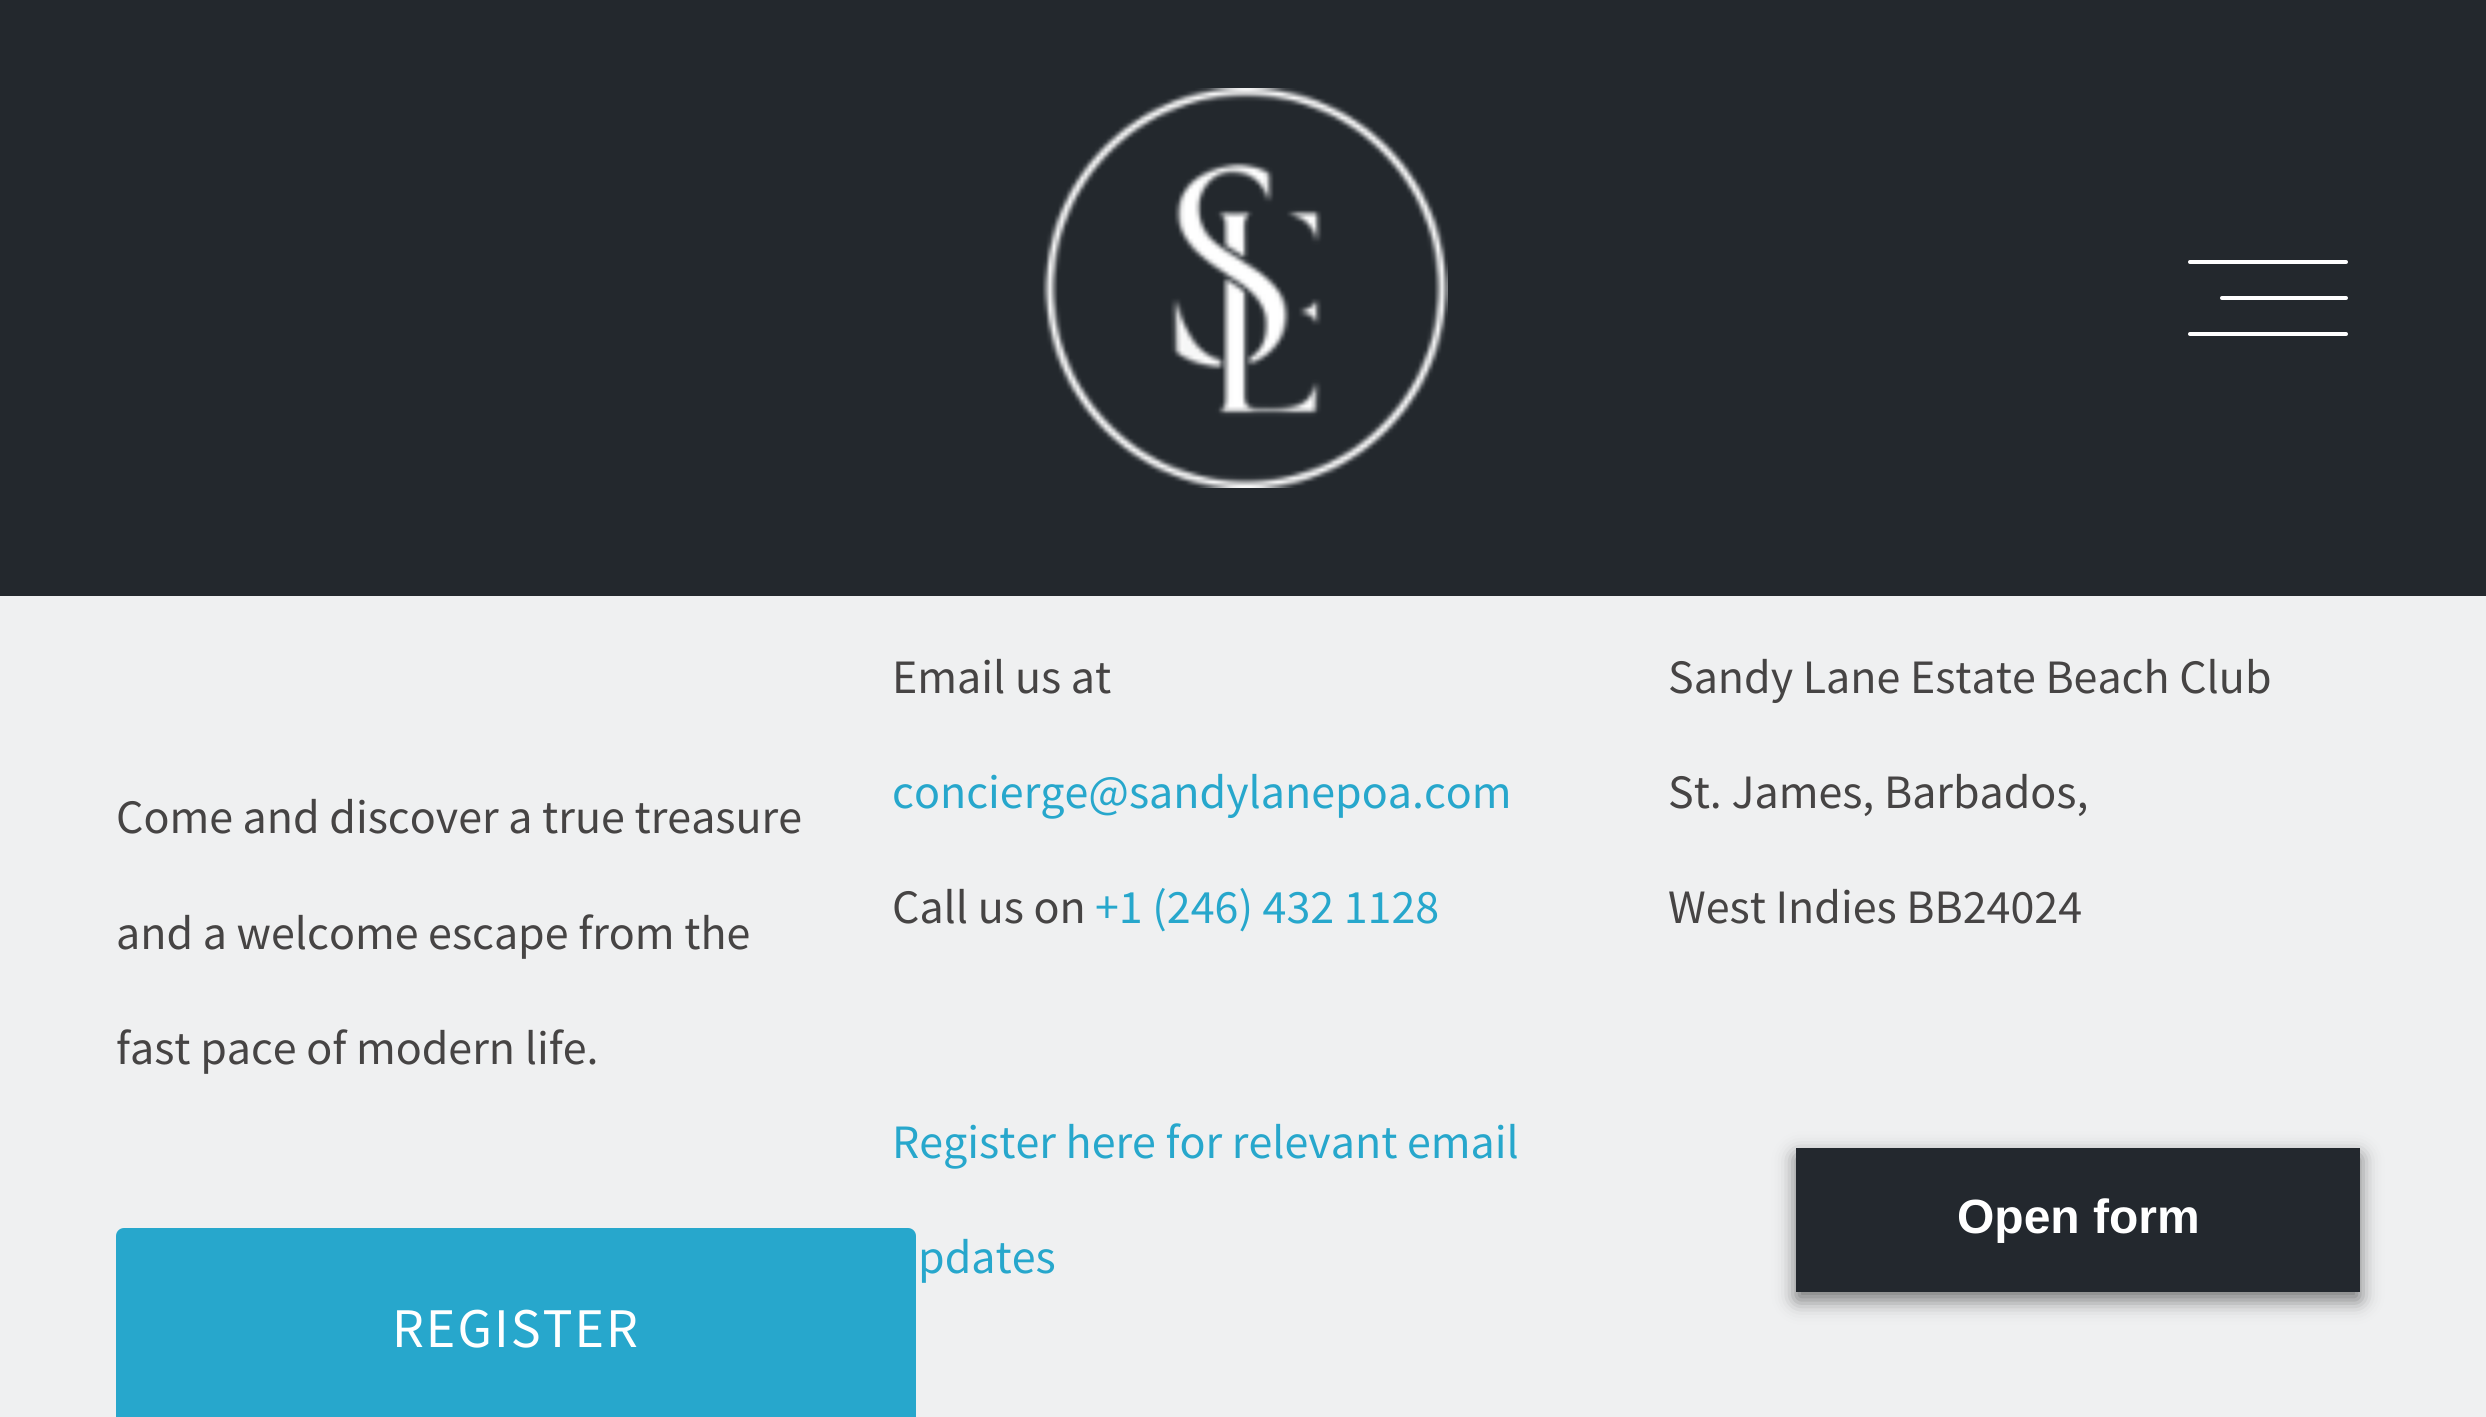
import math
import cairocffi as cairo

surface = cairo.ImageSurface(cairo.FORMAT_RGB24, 2486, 1417)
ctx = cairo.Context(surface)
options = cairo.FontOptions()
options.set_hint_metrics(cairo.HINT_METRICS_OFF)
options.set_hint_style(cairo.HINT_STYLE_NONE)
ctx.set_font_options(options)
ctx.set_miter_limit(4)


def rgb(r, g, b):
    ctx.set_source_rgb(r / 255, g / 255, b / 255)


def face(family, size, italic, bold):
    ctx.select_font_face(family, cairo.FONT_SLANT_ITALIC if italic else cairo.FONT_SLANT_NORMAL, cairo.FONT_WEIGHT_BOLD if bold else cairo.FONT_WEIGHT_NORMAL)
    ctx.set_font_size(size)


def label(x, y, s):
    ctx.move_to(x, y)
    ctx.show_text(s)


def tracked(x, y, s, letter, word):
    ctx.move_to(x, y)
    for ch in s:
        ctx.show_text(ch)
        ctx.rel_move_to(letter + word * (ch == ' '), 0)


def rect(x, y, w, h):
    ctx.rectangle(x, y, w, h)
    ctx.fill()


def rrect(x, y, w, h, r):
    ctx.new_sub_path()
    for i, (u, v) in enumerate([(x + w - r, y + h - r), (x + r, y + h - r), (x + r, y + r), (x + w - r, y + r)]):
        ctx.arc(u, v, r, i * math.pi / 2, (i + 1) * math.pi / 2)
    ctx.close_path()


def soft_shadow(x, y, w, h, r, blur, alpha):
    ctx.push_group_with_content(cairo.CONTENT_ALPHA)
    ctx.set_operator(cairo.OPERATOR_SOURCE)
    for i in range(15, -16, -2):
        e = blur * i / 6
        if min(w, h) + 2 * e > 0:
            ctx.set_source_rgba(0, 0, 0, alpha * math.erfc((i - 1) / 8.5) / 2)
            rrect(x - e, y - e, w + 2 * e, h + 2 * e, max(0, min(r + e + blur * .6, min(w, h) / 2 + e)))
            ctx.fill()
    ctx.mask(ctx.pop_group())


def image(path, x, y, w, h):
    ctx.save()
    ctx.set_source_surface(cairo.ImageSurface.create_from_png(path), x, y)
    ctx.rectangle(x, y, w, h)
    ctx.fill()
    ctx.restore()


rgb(239, 240, 241)
ctx.paint()
rgb(35, 40, 45)
rect(0, 0, 2486, 596)
image('image0.png', 1042, 88, 406, 400)
rgb(255, 255, 255)
rrect(2188, 260, 160, 4, 2)
ctx.fill()
rrect(2220, 296, 128, 4, 2)
ctx.fill()
rrect(2188, 332, 160, 4, 2)
ctx.fill()
face('Source Sans Pro', 48, 0, 0)
rgb(70, 68, 68)
label(116, 833, 'Come and discover a true treasure')
label(116, 949, 'and a welcome escape from the')
label(116, 1064, 'fast pace of modern life.')
rgb(39, 167, 204)
rrect(116, 1228, 800, 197, 8)
ctx.fill()
face('Source Sans Pro', 56, 0, 0)
rgb(255, 255, 255)
tracked(392, 1347, 'REGISTER', 2, 0)
face('Source Sans Pro', 48, 0, 0)
rgb(70, 68, 68)
label(892, 693, 'Email us at')
rgb(39, 167, 204)
label(892, 808, 'concierge@sandylanepoa.com')
rgb(70, 68, 68)
label(892, 923, 'Call us on')
rgb(39, 167, 204)
label(1095, 923, '+1 (246) 432 1128')
label(892, 1158, 'Register here for relevant email')
label(918, 1273, 'pdates')
rgb(70, 68, 68)
label(1668, 693, 'Sandy Lane Estate Beach Club')
label(1668, 808, 'St. James, Barbados,')
label(1668, 923, 'West Indies BB24024')
rgb(0, 0, 0)
soft_shadow(1796, 1156, 564, 144, 0, 10, 0.52)
rgb(35, 40, 46)
rect(1796, 1148, 564, 144)
face('Liberation Sans', 48, 0, 1)
rgb(255, 255, 255)
label(1957, 1233, 'Open form')
surface.write_to_png('render.png')
